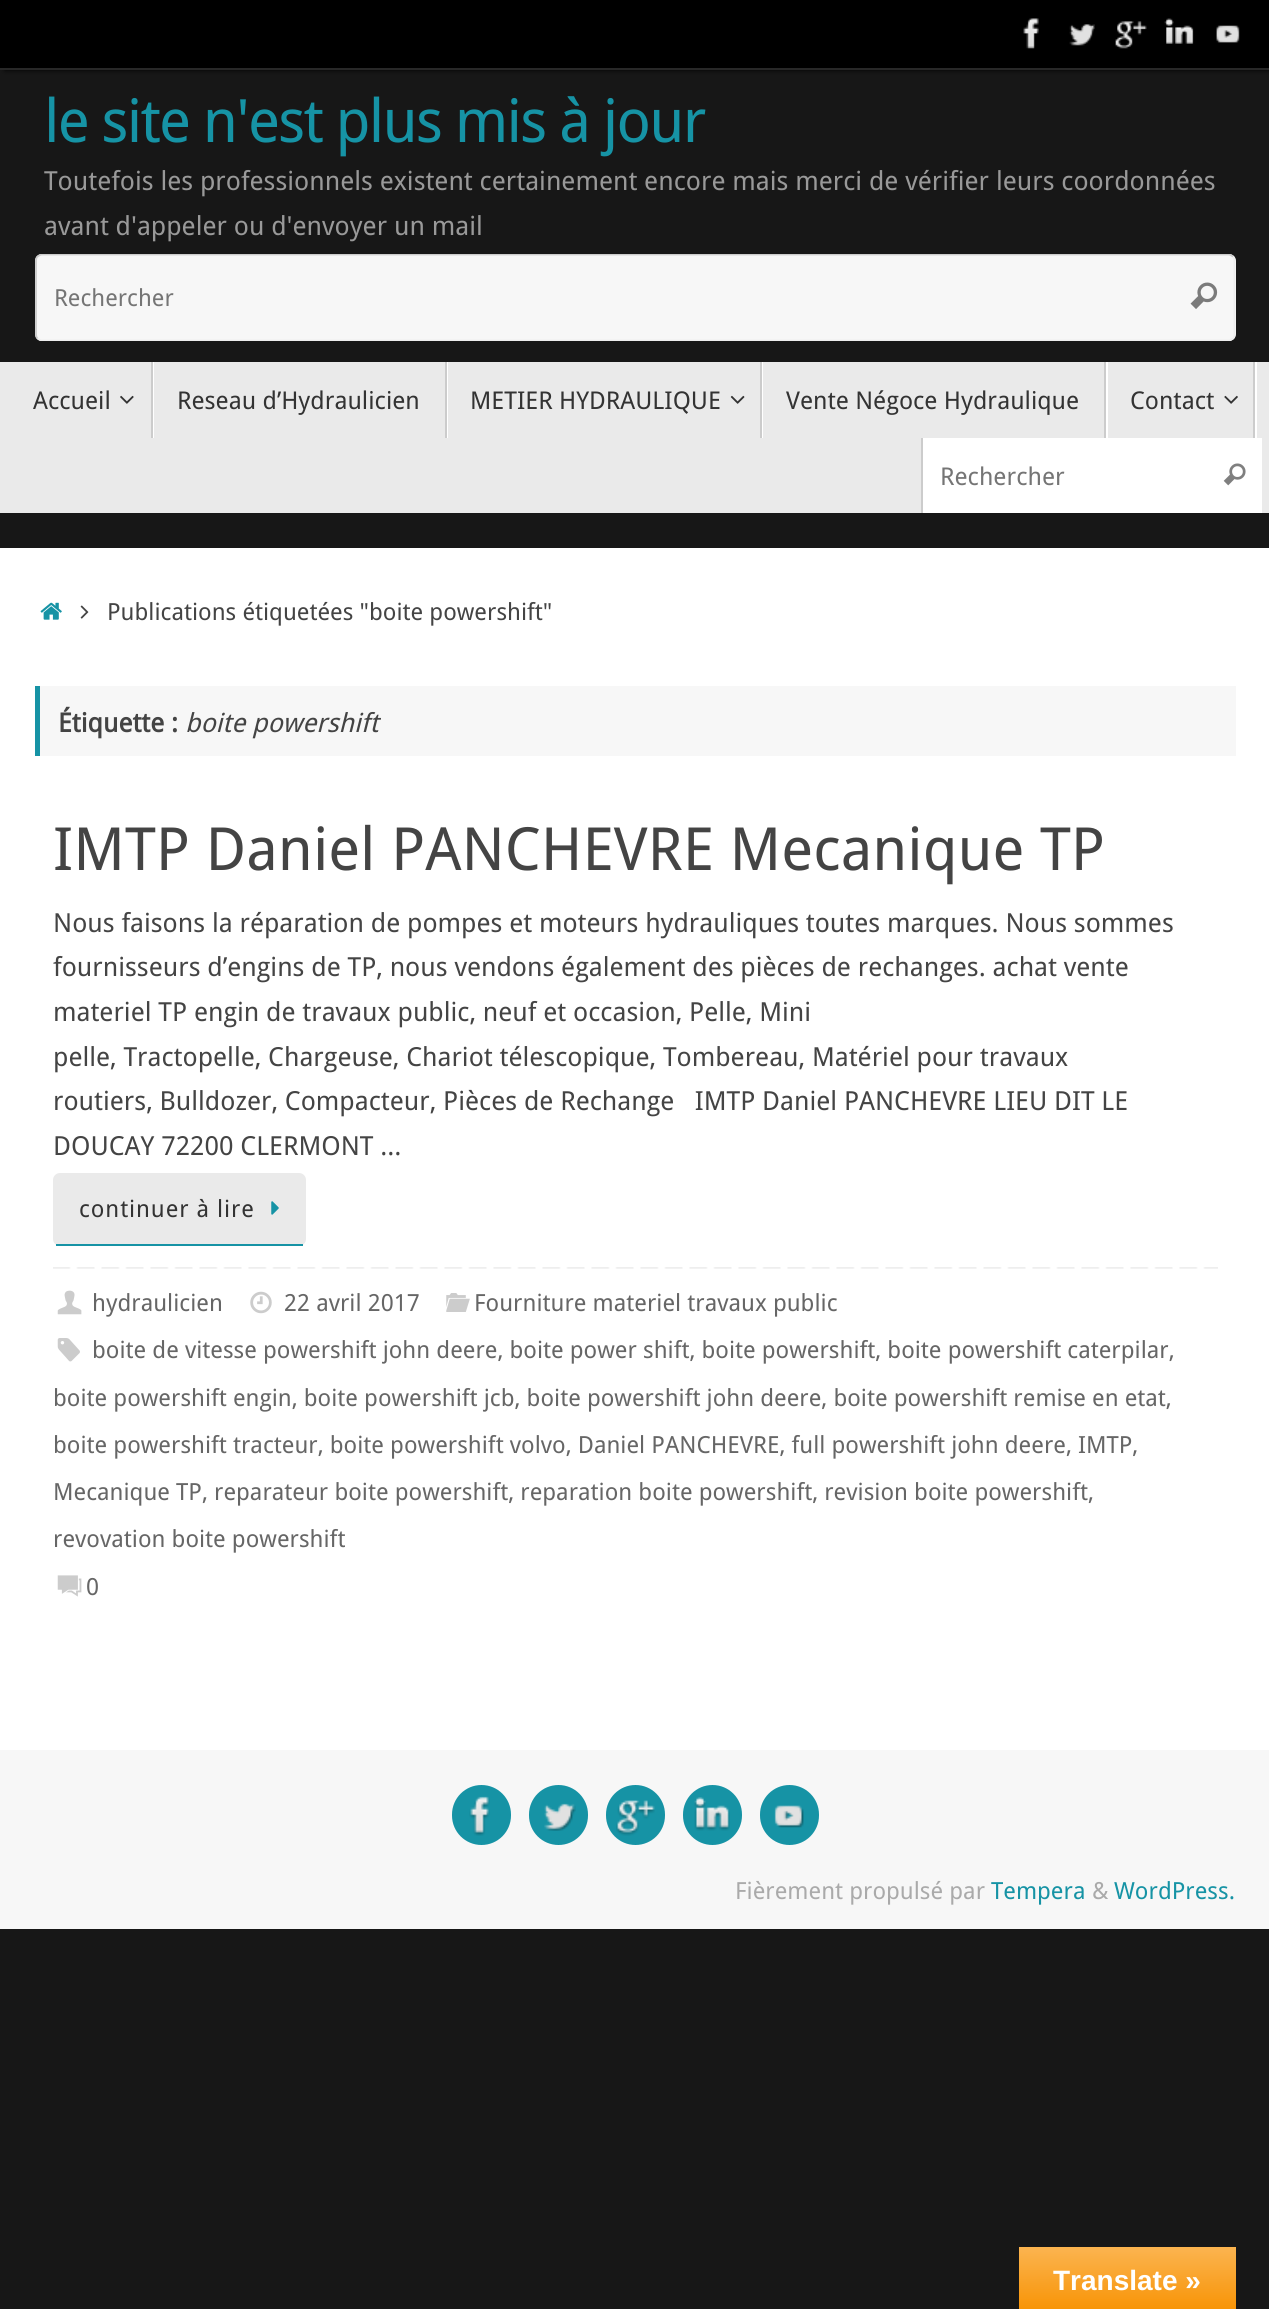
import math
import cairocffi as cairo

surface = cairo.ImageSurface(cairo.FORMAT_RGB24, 1269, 2309)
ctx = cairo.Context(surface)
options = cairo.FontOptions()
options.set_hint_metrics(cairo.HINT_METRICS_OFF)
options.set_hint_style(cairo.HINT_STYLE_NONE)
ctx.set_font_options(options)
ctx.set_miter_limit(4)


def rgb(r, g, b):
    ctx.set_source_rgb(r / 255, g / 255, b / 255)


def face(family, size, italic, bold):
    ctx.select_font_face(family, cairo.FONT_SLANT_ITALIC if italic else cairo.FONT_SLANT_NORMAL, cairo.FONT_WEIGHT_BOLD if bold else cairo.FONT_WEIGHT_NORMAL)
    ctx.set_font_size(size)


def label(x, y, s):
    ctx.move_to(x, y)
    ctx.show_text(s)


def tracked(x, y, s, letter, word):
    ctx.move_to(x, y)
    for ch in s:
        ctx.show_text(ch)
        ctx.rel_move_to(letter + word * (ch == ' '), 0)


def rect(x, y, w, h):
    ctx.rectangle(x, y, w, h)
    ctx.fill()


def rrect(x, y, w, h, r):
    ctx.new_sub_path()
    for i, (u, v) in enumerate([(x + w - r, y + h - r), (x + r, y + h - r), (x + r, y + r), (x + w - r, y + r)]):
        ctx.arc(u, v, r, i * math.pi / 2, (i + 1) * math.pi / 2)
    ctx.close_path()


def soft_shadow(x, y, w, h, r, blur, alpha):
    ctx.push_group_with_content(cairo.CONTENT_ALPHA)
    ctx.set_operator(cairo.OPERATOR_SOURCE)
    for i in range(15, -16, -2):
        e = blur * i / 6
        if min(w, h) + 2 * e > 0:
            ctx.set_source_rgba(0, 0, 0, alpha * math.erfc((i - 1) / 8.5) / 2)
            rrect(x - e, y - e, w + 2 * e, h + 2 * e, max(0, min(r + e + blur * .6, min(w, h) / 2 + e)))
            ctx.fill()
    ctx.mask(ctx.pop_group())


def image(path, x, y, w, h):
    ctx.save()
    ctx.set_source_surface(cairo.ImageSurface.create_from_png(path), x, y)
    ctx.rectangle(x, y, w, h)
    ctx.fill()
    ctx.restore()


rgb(23, 23, 23)
ctx.paint()
rgb(0, 0, 0)
soft_shadow(5, 0, 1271, 70, 0, 2.5, 1)
rgb(0, 0, 0)
rect(0, 0, 1269, 68)
rgb(40, 40, 40)
rect(0, 68, 1269, 2)
image('image0.png', 1023, 18, 16, 31)
image('image1.png', 1069, 24, 26, 22)
image('image2.png', 1115, 21, 32, 28)
image('image3.png', 1164, 18, 30, 26)
image('image4.png', 1216, 25, 24, 18)
face('Droid Sans', 59.8, 0, 0)
rgb(22, 147, 165)
tracked(44, 142, 'le site n\'est plus mis à jour', -1.8, 0)
face('Droid Sans', 26.25, 0, 0)
rgb(153, 153, 153)
label(44, 190, 'Toutefois les professionnels existent certainement encore mais merci de vérifier leurs coordonnées')
label(44, 235, 'avant d\'appeler ou d\'envoyer un mail')
rgb(247, 247, 247)
rrect(35, 254, 1201, 87, 7)
ctx.fill()
ctx.save()
ctx.rectangle(35, 254, 1201, 87)
ctx.clip()
ctx.new_path()
ctx.move_to(1233, 256.5)
ctx.curve_to(1234, 257.5, 1234.5, 259, 1234.5, 261)
ctx.line_to(1234.5, 334)
ctx.curve_to(1234.5, 336, 1234, 337.5, 1233, 338.5)
ctx.curve_to(1231.5, 339.5, 1230, 340.5, 1228.5, 340.5)
ctx.line_to(42, 340.5)
ctx.curve_to(40.5, 340.5, 39, 339.5, 37.5, 338.5)
rgb(238, 238, 238)
ctx.set_line_width(1.8)
ctx.stroke()
ctx.new_path()
ctx.move_to(37.5, 338.5)
ctx.curve_to(36.5, 337.5, 36, 336, 36, 334)
ctx.line_to(36, 261)
ctx.curve_to(36, 259, 36.5, 257.5, 37.5, 256.5)
ctx.curve_to(39, 255.5, 40.5, 254.5, 42, 254.5)
ctx.line_to(1228.5, 254.5)
ctx.curve_to(1230, 254.5, 1231.5, 255.5, 1233, 256.5)
rgb(204, 204, 204)
ctx.stroke()
ctx.restore()
face('Droid Sans', 23.5, 0, 0)
rgb(117, 117, 117)
label(54, 306, 'Rechercher')
image('image5.png', 1190, 282, 28, 27)
rgb(234, 234, 234)
rect(0, 362, 1269, 151)
rgb(255, 255, 255)
ctx.new_path()
ctx.move_to(11, 362)
ctx.line_to(152, 362)
ctx.line_to(152, 438)
ctx.line_to(11, 438)
ctx.line_to(154, 438)
ctx.line_to(154, 362)
ctx.close_path()
ctx.fill()
rgb(204, 204, 204)
rect(151, 362, 2, 76)
face('Droid Sans', 24.5, 0, 0)
rgb(51, 51, 51)
label(33, 409, 'Accueil')
image('image6.png', 120, 395, 14, 9)
rgb(255, 255, 255)
ctx.new_path()
ctx.move_to(154, 362)
ctx.line_to(446, 362)
ctx.line_to(446, 438)
ctx.line_to(154, 438)
ctx.line_to(448, 438)
ctx.line_to(448, 362)
ctx.close_path()
ctx.fill()
rgb(204, 204, 204)
rect(445, 362, 2, 76)
rgb(51, 51, 51)
label(177, 409, 'Reseau d’Hydraulicien')
rgb(255, 255, 255)
ctx.new_path()
ctx.move_to(448, 362)
ctx.line_to(761, 362)
ctx.line_to(761, 438)
ctx.line_to(448, 438)
ctx.line_to(763, 438)
ctx.line_to(763, 362)
ctx.close_path()
ctx.fill()
rgb(204, 204, 204)
rect(760, 362, 2, 76)
rgb(51, 51, 51)
label(470, 409, 'METIER HYDRAULIQUE')
image('image7.png', 730, 395, 15, 9)
rgb(255, 255, 255)
ctx.new_path()
ctx.move_to(763, 362)
ctx.line_to(1106, 362)
ctx.line_to(1106, 438)
ctx.line_to(763, 438)
ctx.line_to(1108, 438)
ctx.line_to(1108, 362)
ctx.close_path()
ctx.fill()
rgb(204, 204, 204)
rect(1104, 362, 2, 76)
rgb(51, 51, 51)
label(786, 409, 'Vente Négoce Hydraulique')
rgb(255, 255, 255)
ctx.new_path()
ctx.move_to(1108, 362)
ctx.line_to(1255, 362)
ctx.line_to(1255, 438)
ctx.line_to(1108, 438)
ctx.line_to(1257, 438)
ctx.line_to(1257, 362)
ctx.close_path()
ctx.fill()
rgb(204, 204, 204)
rect(1253, 362, 2, 76)
rgb(51, 51, 51)
label(1130, 409, 'Contact')
image('image8.png', 1224, 395, 14, 9)
rgb(255, 255, 255)
rect(923, 438, 339, 75)
rgb(204, 204, 204)
rect(921, 438, 2, 75)
rgb(117, 117, 117)
label(940, 485, 'Rechercher')
image('image9.png', 1223, 463, 23, 23)
rgb(255, 255, 255)
rect(0, 548, 1269, 1202)
image('image10.png', 40, 602, 22, 18)
image('image11.png', 80, 605, 9, 14)
face('Droid Sans', 23.6, 0, 0)
rgb(68, 68, 68)
label(107, 620, 'Publications étiquetées "boite powershift"')
rgb(247, 247, 247)
rect(40, 686, 1196, 70)
rgb(22, 147, 165)
rect(35, 686, 5, 70)
face('Droid Sans', 26.25, 0, 1)
rgb(68, 68, 68)
label(58, 732, 'Étiquette :')
face('Droid Sans', 26.25, 1, 0)
label(185, 732, 'boite powershift')
face('Droid Sans', 59.5, 0, 0)
label(53, 870, 'IMTP Daniel PANCHEVRE Mecanique TP')
face('Droid Sans', 26.25, 0, 0)
label(53, 932, 'Nous faisons la réparation de pompes et moteurs hydrauliques toutes marques. Nous sommes')
label(53, 976, 'fournisseurs d’engins de TP, nous vendons également des pièces de rechanges. achat vente')
label(53, 1021, 'materiel TP engin de travaux public, neuf et occasion, Pelle, Mini')
label(53, 1066, 'pelle, Tractopelle, Chargeuse, Chariot télescopique, Tombereau, Matériel pour travaux')
label(53, 1110, 'routiers, Bulldozer, Compacteur, Pièces de Rechange   IMTP Daniel PANCHEVRE LIEU DIT LE')
label(53, 1155, 'DOUCAY 72200 CLERMONT …')
rgb(234, 234, 234)
rrect(53, 1173, 253, 73, 7)
ctx.fill()
rgb(22, 147, 165)
rect(56, 1244, 247, 2)
face('Droid Sans', 23.6, 0, 0)
rgb(51, 51, 51)
tracked(79, 1217, 'continuer à lire', 0.9, 0)
image('image12.png', 271, 1201, 8, 14)
image('image13.png', 53, 1267, 1165, 2)
image('image14.png', 57, 1290, 25, 25)
rgb(102, 102, 102)
label(92, 1311, 'hydraulicien')
image('image15.png', 250, 1291, 22, 23)
label(284, 1311, '22 avril 2017')
image('image16.png', 446, 1293, 24, 19)
label(474, 1311, 'Fourniture materiel travaux public')
image('image17.png', 57, 1338, 23, 24)
label(92, 1358, 'boite de vitesse powershift john deere, boite power shift, boite powershift, boite powershift caterpilar,')
label(53, 1406, 'boite powershift engin, boite powershift jcb, boite powershift john deere, boite powershift remise en etat,')
label(53, 1453, 'boite powershift tracteur, boite powershift volvo, Daniel PANCHEVRE, full powershift john deere, IMTP,')
label(53, 1500, 'Mecanique TP, reparateur boite powershift, reparation boite powershift, revision boite powershift,')
label(53, 1547, 'revovation boite powershift')
image('image18.png', 57, 1575, 25, 22)
label(86, 1595, '0')
rgb(247, 247, 247)
rect(0, 1750, 1269, 179)
rgb(22, 147, 165)
rrect(452, 1785, 59, 60, 29.5)
ctx.fill()
image('image19.png', 469, 1796, 21, 40)
rrect(529, 1785, 59, 60, 29.5)
ctx.fill()
image('image20.png', 544, 1803, 32, 28)
rrect(606, 1785, 59, 60, 29.5)
ctx.fill()
image('image21.png', 616, 1800, 39, 36)
rrect(683, 1785, 59, 60, 29.5)
ctx.fill()
image('image22.png', 694, 1797, 36, 34)
rrect(760, 1785, 59, 60, 29.5)
ctx.fill()
image('image23.png', 774, 1805, 30, 23)
rgb(170, 170, 170)
label(735, 1899, 'Fièrement propulsé par')
rgb(22, 147, 165)
label(991, 1899, 'Tempera')
rgb(170, 170, 170)
label(1092, 1899, '&')
rgb(22, 147, 165)
label(1114, 1899, 'WordPress.')
gradient = cairo.LinearGradient(1127, 2247, 1127, 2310)
gradient.add_color_stop_rgba(0, 0.984, 0.706, 0.314, 1)
gradient.add_color_stop_rgba(1, 0.973, 0.58, 0.024, 1)
ctx.set_source(gradient)
rect(1019, 2247, 217, 62)
face('Liberation Sans', 28, 0, 1)
rgb(255, 255, 255)
label(1053, 2290, 'Translate »')
surface.write_to_png('render.png')
